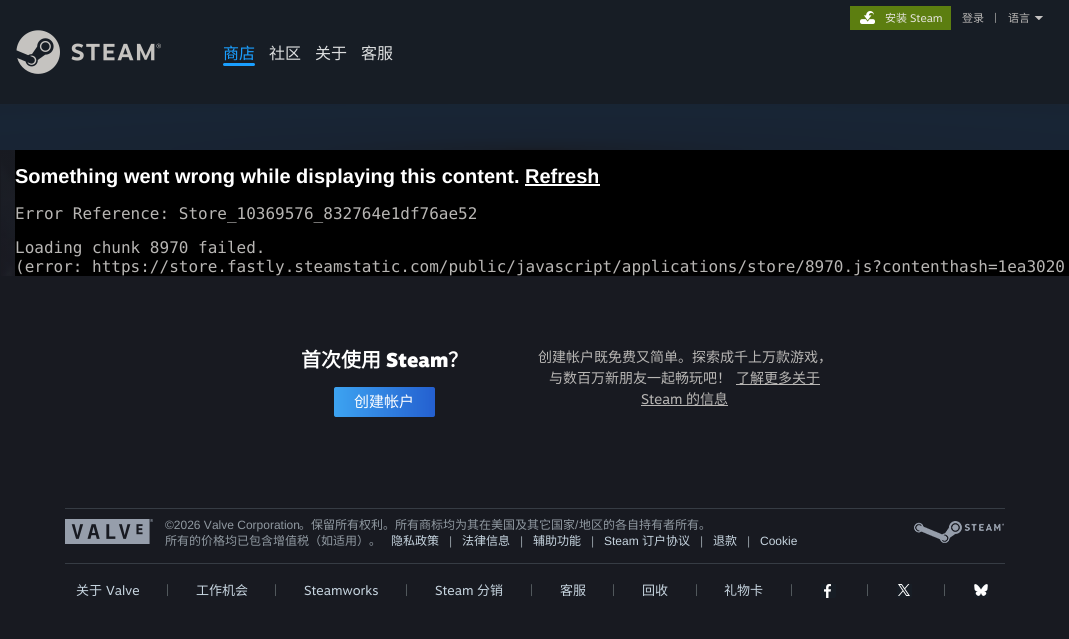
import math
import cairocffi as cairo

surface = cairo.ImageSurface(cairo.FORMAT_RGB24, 1069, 639)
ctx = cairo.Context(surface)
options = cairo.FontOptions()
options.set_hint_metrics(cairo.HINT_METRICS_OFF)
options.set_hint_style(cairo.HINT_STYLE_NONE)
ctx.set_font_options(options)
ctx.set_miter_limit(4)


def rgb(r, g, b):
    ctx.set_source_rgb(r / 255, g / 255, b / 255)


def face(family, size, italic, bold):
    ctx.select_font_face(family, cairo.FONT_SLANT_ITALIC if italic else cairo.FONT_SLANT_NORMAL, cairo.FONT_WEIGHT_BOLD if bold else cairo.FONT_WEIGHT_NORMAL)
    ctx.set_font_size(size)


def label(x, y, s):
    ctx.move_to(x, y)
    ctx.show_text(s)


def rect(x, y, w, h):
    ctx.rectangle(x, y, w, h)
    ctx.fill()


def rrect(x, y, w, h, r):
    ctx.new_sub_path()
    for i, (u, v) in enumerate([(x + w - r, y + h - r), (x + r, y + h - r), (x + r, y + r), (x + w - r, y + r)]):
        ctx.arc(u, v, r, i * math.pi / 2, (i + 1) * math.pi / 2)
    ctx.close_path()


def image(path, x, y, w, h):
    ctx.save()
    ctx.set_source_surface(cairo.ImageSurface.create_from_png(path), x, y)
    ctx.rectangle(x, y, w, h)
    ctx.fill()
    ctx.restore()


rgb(24, 26, 33)
ctx.paint()
rgb(23, 29, 37)
rect(0, 0, 1069, 104)
rgb(92, 126, 16)
rect(850, 6, 101, 24)
image('image0.png', 860, 11, 15, 13)
face('Noto Sans CJK SC', 11, 0, 0)
rgb(229, 228, 220)
label(885, 22, '安装')
face('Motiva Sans', 11, 0, 0)
label(910, 22, 'Steam')
face('Noto Sans CJK SC', 11, 0, 0)
rgb(184, 182, 180)
label(962, 22, '登录')
face('Motiva Sans', 11, 0, 0)
label(994, 22, '|')
face('Noto Sans CJK SC', 11, 0, 0)
label(1008, 22, '语言')
image('image1.png', 1034, 16, 9, 4)
image('image2.png', 16, 30, 145, 44)
face('Noto Sans CJK SC', 16, 0, 0)
rgb(26, 159, 255)
label(223, 59, '商店')
rrect(223, 63, 32, 3, 1.5)
ctx.fill()
rgb(220, 222, 223)
label(269, 59, '社区')
label(315, 59, '关于')
label(361, 59, '客服')
gradient = cairo.RadialGradient(0, 0, 0, 0, 0, 1)
gradient.set_matrix(cairo.Matrix(1 / 1166, 0, 0, 1 / 66, -1 * 535 / 1166, -1 * 150 / 66))
gradient.add_color_stop_rgba(0, 0.094, 0.11, 0.145, 1)
gradient.add_color_stop_rgba(0.05, 0.094, 0.125, 0.169, 1)
gradient.add_color_stop_rgba(0.2, 0.094, 0.137, 0.196, 1)
gradient.add_color_stop_rgba(0.6, 0.094, 0.145, 0.208, 1)
gradient.add_color_stop_rgba(1, 0.098, 0.137, 0.188, 1)
ctx.set_source(gradient)
rect(0, 104, 1069, 46)
image('image3.png', 1, 150, 14, 126)
rgb(0, 0, 0)
rect(15, 150, 1054, 126)
face('Liberation Sans', 20, 0, 1)
rgb(255, 255, 255)
label(15, 183, 'Something went wrong while displaying this content. Refresh')
rect(525, 184, 75, 2)
face('DejaVu Sans Mono', 16, 0, 0)
rgb(184, 182, 180)
label(15, 219, 'Error Reference: Store_10369576_832764e1df76ae52')
label(15, 253, 'Loading chunk 8970 failed.')
label(15, 272, '(error: https://store.fastly.steamstatic.com/public/javascript/applications/store/8970.js?contenthash=1ea3020')
face('Noto Sans CJK SC', 20, 0, 1)
rgb(255, 255, 255)
label(301, 367, '首次使用')
face('Motiva Sans Black', 20, 0, 0)
label(386, 367, 'Steam')
face('Noto Sans CJK SC', 20, 0, 1)
label(448, 367, '？')
gradient = cairo.LinearGradient(276, 402, 609, 402)
gradient.add_color_stop_rgba(0.05, 0.278, 0.749, 1, 1)
gradient.add_color_stop_rgba(0.6, 0.102, 0.267, 0.761, 1)
ctx.set_source(gradient)
rrect(334, 387, 101, 30, 2)
ctx.fill()
face('Noto Sans CJK SC', 15, 0, 0)
rgb(255, 255, 255)
label(354, 407, '创建帐户')
face('Noto Sans CJK SC', 14, 0, 0)
rgb(184, 182, 180)
label(538, 362, '创建帐户既免费又简单。探索成千上万款游戏，')
label(549, 383, '与数百万新朋友一起畅玩吧！')
rect(736, 384, 84, 1)
label(736, 383, '了解更多关于')
face('Motiva Sans', 14, 0, 0)
label(641, 404, 'Steam')
rect(641, 405, 87, 1)
face('Noto Sans CJK SC', 14, 0, 0)
label(686, 404, '的信息')
rgb(54, 60, 68)
rect(65, 508, 940, 1)
image('image4.png', 65, 519, 88, 25)
face('Liberation Sans', 12, 0, 0)
rgb(143, 152, 160)
label(165, 529, '©2026 Valve Corporation')
face('Noto Sans CJK SC', 12, 0, 0)
label(299, 529, '。保留所有权利。所有商标均为其在美国及其它国家')
face('Liberation Sans', 12, 0, 0)
label(575, 529, '/')
face('Noto Sans CJK SC', 12, 0, 0)
label(579, 529, '地区的各自持有者所有。')
label(165, 545, '所有的价格均已包含增值税（如适用）。')
rgb(198, 212, 223)
label(391, 545, '隐私政策')
face('Liberation Sans', 12, 0, 0)
rgb(143, 152, 160)
label(449, 545, '|')
face('Noto Sans CJK SC', 12, 0, 0)
rgb(198, 212, 223)
label(462, 545, '法律信息')
face('Liberation Sans', 12, 0, 0)
rgb(143, 152, 160)
label(520, 545, '|')
face('Noto Sans CJK SC', 12, 0, 0)
rgb(198, 212, 223)
label(533, 545, '辅助功能')
face('Liberation Sans', 12, 0, 0)
rgb(143, 152, 160)
label(591, 545, '|')
rgb(198, 212, 223)
label(604, 545, 'Steam')
face('Noto Sans CJK SC', 12, 0, 0)
label(642, 545, '订户协议')
face('Liberation Sans', 12, 0, 0)
rgb(143, 152, 160)
label(700, 545, '|')
face('Noto Sans CJK SC', 12, 0, 0)
rgb(198, 212, 223)
label(713, 545, '退款')
face('Liberation Sans', 12, 0, 0)
rgb(143, 152, 160)
label(747, 545, '|')
rgb(198, 212, 223)
label(760, 545, 'Cookie')
image('image5.png', 914, 521, 90, 22)
rgb(54, 60, 68)
rect(65, 563, 940, 1)
face('Noto Sans CJK SC', 13, 0, 0)
rgb(198, 212, 223)
label(76, 595, '关于')
face('Motiva Sans', 13, 0, 0)
label(106, 595, 'Valve')
rgb(97, 104, 109)
label(166, 595, '|')
face('Noto Sans CJK SC', 13, 0, 0)
rgb(198, 212, 223)
label(196, 595, '工作机会')
face('Motiva Sans', 13, 0, 0)
rgb(97, 104, 109)
label(274, 595, '|')
rgb(198, 212, 223)
label(304, 595, 'Steamworks')
rgb(97, 104, 109)
label(405, 595, '|')
rgb(198, 212, 223)
label(435, 595, 'Steam')
face('Noto Sans CJK SC', 13, 0, 0)
label(477, 595, '分销')
face('Motiva Sans', 13, 0, 0)
rgb(97, 104, 109)
label(530, 595, '|')
face('Noto Sans CJK SC', 13, 0, 0)
rgb(198, 212, 223)
label(560, 595, '客服')
face('Motiva Sans', 13, 0, 0)
rgb(97, 104, 109)
label(612, 595, '|')
face('Noto Sans CJK SC', 13, 0, 0)
rgb(198, 212, 223)
label(642, 595, '回收')
face('Motiva Sans', 13, 0, 0)
rgb(97, 104, 109)
label(695, 595, '|')
face('Noto Sans CJK SC', 13, 0, 0)
rgb(198, 212, 223)
label(724, 595, '礼物卡')
face('Motiva Sans', 13, 0, 0)
rgb(97, 104, 109)
label(790, 595, '|')
image('image6.png', 821, 584, 15, 14)
label(866, 595, '|')
image('image7.png', 897, 584, 15, 14)
label(943, 595, '|')
image('image8.png', 974, 584, 15, 14)
surface.write_to_png('render.png')
